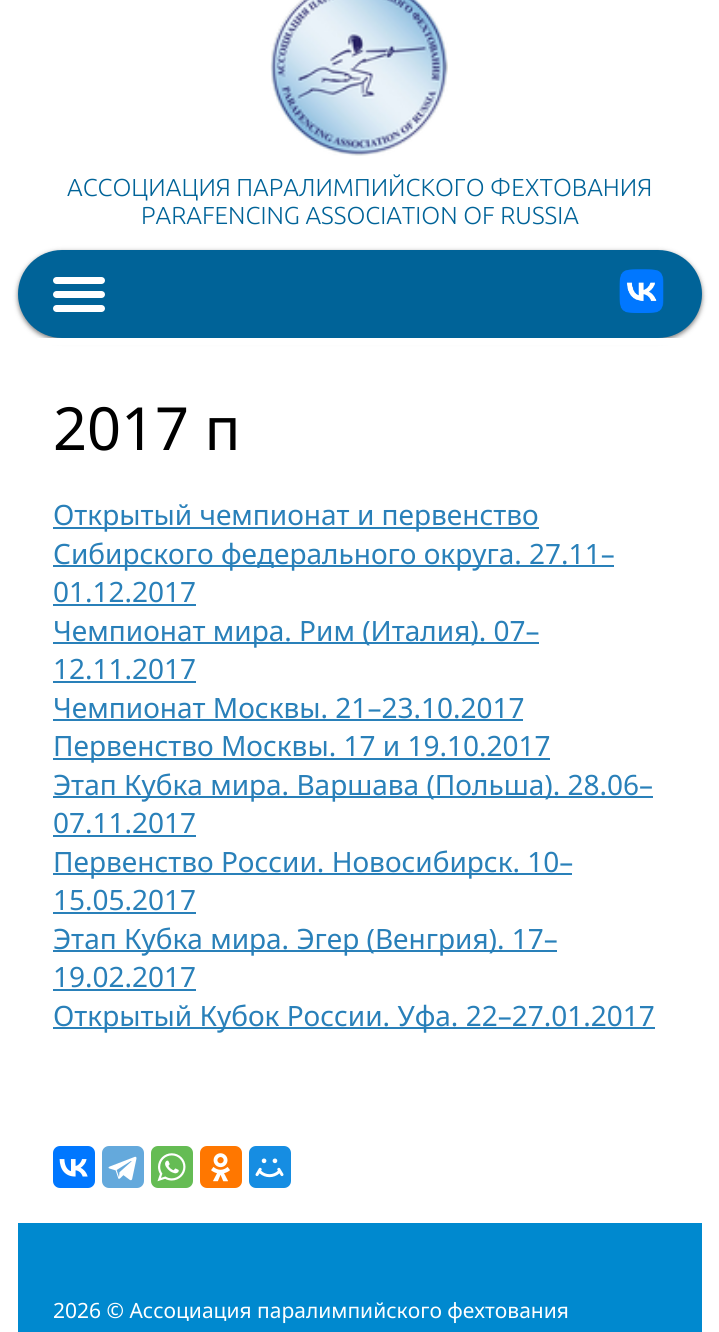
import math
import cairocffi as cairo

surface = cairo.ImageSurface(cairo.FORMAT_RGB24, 719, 1332)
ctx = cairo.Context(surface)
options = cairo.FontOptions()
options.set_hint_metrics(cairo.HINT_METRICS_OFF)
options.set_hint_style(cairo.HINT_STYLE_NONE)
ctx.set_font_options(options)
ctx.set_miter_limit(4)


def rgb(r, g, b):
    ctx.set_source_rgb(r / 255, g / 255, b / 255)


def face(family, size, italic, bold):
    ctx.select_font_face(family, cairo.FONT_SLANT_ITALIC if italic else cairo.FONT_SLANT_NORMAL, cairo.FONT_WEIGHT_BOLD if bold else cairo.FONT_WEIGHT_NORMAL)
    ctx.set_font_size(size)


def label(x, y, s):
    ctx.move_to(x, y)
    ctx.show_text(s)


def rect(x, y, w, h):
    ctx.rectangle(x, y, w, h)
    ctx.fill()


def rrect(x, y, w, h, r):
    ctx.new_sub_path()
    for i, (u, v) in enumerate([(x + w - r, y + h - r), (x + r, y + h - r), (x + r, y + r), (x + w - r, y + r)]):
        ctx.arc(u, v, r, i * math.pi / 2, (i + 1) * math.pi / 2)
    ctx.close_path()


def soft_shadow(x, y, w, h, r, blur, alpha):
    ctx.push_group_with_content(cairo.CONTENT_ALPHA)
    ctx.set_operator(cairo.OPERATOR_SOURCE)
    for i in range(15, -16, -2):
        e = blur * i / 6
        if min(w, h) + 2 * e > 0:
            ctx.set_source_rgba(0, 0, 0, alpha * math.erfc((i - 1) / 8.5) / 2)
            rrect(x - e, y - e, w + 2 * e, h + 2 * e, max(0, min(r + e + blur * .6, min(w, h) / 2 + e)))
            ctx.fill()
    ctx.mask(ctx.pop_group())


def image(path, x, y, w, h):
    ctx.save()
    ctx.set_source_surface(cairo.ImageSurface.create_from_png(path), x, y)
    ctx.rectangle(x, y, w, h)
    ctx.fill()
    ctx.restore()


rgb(255, 255, 255)
ctx.paint()
image('image0.png', 270, 0, 178, 156)
face('Ubuntu Light', 24.5, 0, 0)
rgb(0, 99, 152)
label(67, 196, 'АССОЦИАЦИЯ ПАРАЛИМПИЙСКОГО ФЕХТОВАНИЯ')
label(141, 224, 'PARAFENCING ASSOCIATION OF RUSSIA')
rgb(105, 105, 105)
soft_shadow(18, 252, 684, 88, 44, 2.5, 0.89)
rgb(0, 99, 152)
rrect(18, 250, 684, 88, 44)
ctx.fill()
image('image1.png', 619, 269, 45, 44)
rgb(255, 255, 255)
rrect(53, 291, 52, 7, 3.5)
ctx.fill()
rrect(53, 277, 52, 7, 3.5)
ctx.fill()
rrect(53, 305, 52, 7, 3.5)
ctx.fill()
rect(37, 338, 646, 7)
face('Noto Sans', 59.5, 0, 0)
rgb(0, 0, 0)
label(53, 450, '2017 п')
rgb(41, 128, 185)
rect(53, 527, 486, 2)
face('Noto Sans', 28, 0, 0)
label(53, 525, 'Открытый чемпионат и первенство')
rect(53, 565, 561, 2)
label(53, 564, 'Сибирского федерального округа. 27.11–')
label(53, 602, '01.12.2017')
rect(53, 604, 143, 2)
rect(53, 642, 486, 2)
label(53, 641, 'Чемпионат мира. Рим (Италия). 07–')
label(53, 679, '12.11.2017')
rect(53, 681, 143, 2)
label(53, 718, 'Чемпионат Москвы. 21–23.10.2017')
rect(53, 719, 470, 2)
rect(53, 758, 497, 2)
label(53, 756, 'Первенство Москвы. 17 и 19.10.2017')
rect(53, 796, 600, 2)
label(53, 795, 'Этап Кубка мира. Варшава (Польша). 28.06–')
label(53, 833, '07.11.2017')
rect(53, 835, 143, 2)
rect(53, 873, 519, 2)
label(53, 872, 'Первенство России. Новосибирск. 10–')
label(53, 910, '15.05.2017')
rect(53, 912, 143, 2)
rect(53, 950, 504, 2)
label(53, 949, 'Этап Кубка мира. Эгер (Венгрия). 17–')
label(53, 987, '19.02.2017')
rect(53, 989, 143, 2)
rect(53, 1027, 602, 2)
label(53, 1026, 'Открытый Кубок России. Уфа. 22–27.01.2017')
rgb(0, 119, 255)
rrect(53, 1146, 42, 42, 7)
ctx.fill()
image('image2.png', 59, 1159, 29, 18)
rgb(100, 169, 220)
rrect(102, 1146, 42, 42, 7)
ctx.fill()
image('image3.png', 108, 1156, 29, 25)
rgb(101, 188, 84)
rrect(151, 1146, 42, 42, 7)
ctx.fill()
image('image4.png', 157, 1153, 29, 29)
rgb(255, 119, 0)
rrect(200, 1146, 42, 42, 7)
ctx.fill()
image('image5.png', 211, 1153, 19, 29)
rgb(22, 141, 226)
rrect(249, 1146, 42, 42, 7)
ctx.fill()
image('image6.png', 255, 1158, 29, 20)
rgb(0, 137, 207)
rect(18, 1223, 684, 109)
face('Noto Sans', 21, 0, 0)
rgb(255, 255, 255)
label(53, 1318, '2026 © Ассоциация паралимпийского фехтования')
surface.write_to_png('render.png')
